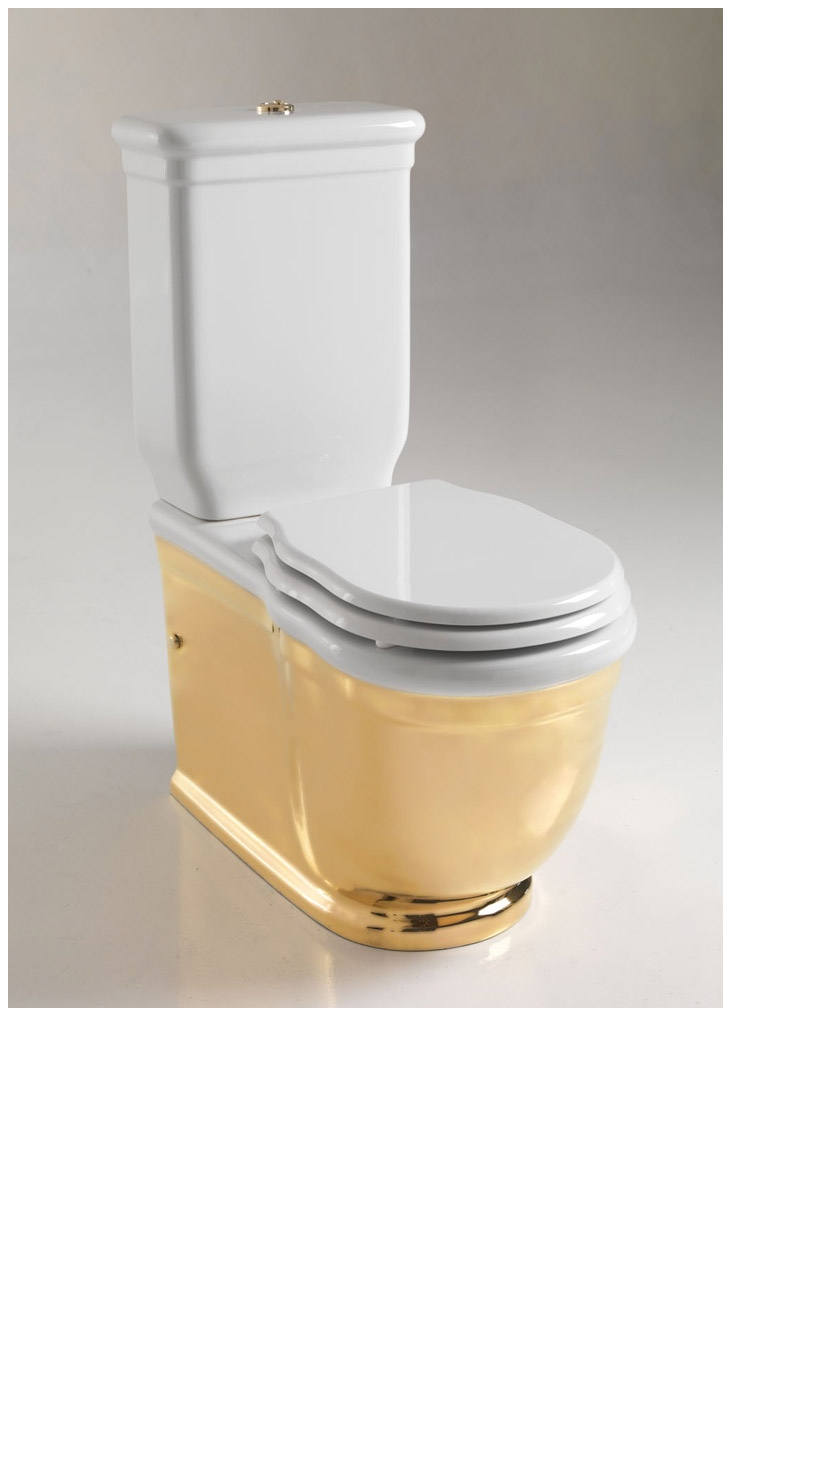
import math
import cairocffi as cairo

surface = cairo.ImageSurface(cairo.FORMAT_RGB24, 831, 1466)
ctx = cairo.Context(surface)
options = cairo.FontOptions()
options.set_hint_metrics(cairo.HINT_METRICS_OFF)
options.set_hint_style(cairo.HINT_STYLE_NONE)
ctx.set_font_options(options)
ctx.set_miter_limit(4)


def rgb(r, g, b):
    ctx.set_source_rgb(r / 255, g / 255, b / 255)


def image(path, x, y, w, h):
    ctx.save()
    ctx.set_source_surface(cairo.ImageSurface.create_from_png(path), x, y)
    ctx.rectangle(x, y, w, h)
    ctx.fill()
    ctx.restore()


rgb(255, 255, 255)
ctx.paint()
image('image0.png', 8, 8, 715, 1000)
surface.write_to_png('render.png')
